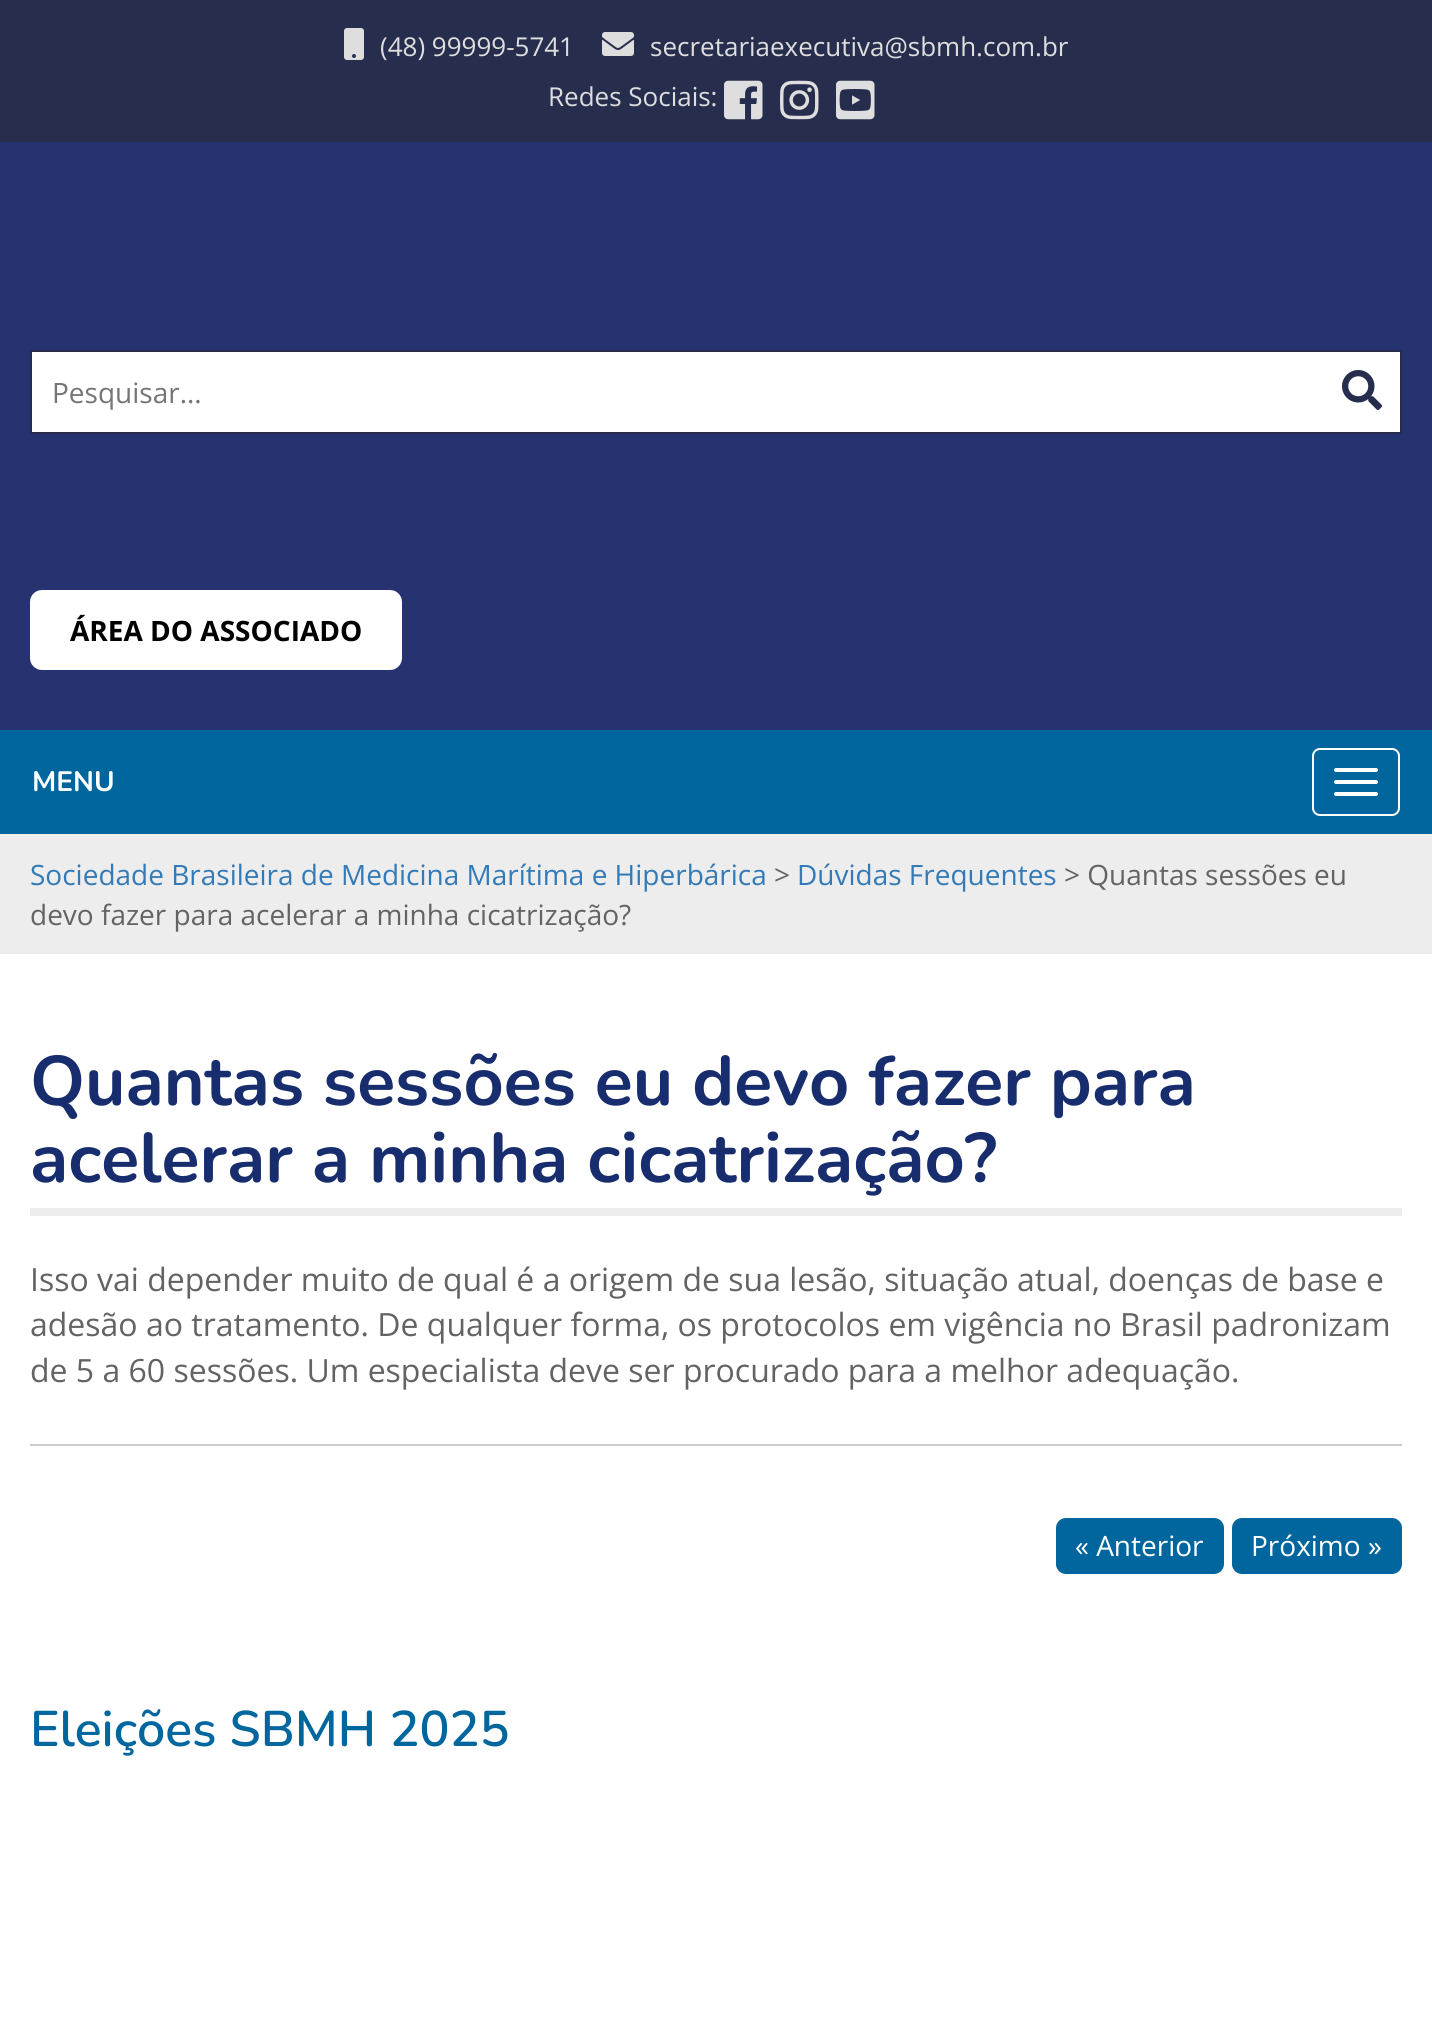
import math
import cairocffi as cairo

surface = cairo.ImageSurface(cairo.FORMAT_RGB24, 1432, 2044)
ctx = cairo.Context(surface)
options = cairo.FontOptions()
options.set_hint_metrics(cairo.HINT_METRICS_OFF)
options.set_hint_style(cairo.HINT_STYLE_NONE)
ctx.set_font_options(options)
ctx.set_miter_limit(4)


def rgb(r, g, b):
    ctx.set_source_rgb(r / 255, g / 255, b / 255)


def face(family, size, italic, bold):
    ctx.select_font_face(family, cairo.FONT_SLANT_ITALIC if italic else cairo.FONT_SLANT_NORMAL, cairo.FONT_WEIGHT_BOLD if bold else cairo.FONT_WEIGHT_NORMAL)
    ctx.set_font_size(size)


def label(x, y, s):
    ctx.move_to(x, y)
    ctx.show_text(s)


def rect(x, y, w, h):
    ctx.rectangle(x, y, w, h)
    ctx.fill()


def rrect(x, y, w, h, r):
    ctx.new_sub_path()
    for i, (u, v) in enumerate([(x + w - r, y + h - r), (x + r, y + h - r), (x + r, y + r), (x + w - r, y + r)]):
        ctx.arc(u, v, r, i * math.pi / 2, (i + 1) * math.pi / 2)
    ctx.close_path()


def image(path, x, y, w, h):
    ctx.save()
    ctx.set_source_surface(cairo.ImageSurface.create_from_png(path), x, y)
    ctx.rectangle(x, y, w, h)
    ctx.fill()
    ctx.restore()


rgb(255, 255, 255)
ctx.paint()
rgb(39, 46, 77)
rect(0, 0, 1432, 142)
image('image0.png', 344, 28, 20, 32)
face('Open Sans', 26, 0, 0)
rgb(222, 222, 222)
label(380, 56, '(48) 99999-5741')
image('image1.png', 602, 32, 32, 24)
label(650, 56, 'secretariaexecutiva@sbmh.com.br')
label(548, 106, 'Redes Sociais:')
image('image2.png', 724, 80, 39, 40)
image('image3.png', 780, 80, 39, 40)
image('image4.png', 836, 80, 39, 40)
rgb(39, 51, 113)
rect(0, 142, 1432, 588)
rgb(255, 255, 255)
ctx.rectangle(31, 351, 1370, 82)
ctx.fill_preserve()
rgb(39, 46, 77)
ctx.stroke()
face('Open Sans', 28, 0, 0)
rgb(117, 117, 117)
label(52, 403, 'Pesquisar...')
image('image5.png', 1342, 370, 40, 40)
rgb(255, 255, 255)
rrect(30, 590, 372, 80, 12)
ctx.fill()
face('Open Sans', 28, 0, 1)
rgb(0, 0, 0)
label(70, 641, 'ÁREA DO ASSOCIADO')
rgb(0, 102, 157)
rect(0, 730, 1432, 104)
face('Nunito', 28, 0, 1)
rgb(255, 255, 255)
label(32, 791, 'MENU')
rrect(1313, 749, 86, 66, 7)
ctx.stroke()
rrect(1334, 768, 44, 4, 2)
ctx.fill()
rrect(1334, 780, 44, 4, 2)
ctx.fill()
rrect(1334, 792, 44, 4, 2)
ctx.fill()
rgb(237, 237, 237)
rect(0, 834, 1432, 120)
face('Open Sans', 28, 0, 0)
rgb(51, 122, 183)
label(30, 885, 'Sociedade Brasileira de Medicina Marítima e Hiperbárica')
rgb(99, 99, 99)
label(774, 885, '>')
rgb(51, 122, 183)
label(797, 885, 'Dúvidas Frequentes')
rgb(99, 99, 99)
label(1064, 885, '> Quantas sessões eu')
label(30, 925, 'devo fazer para acelerar a minha cicatrização?')
rgb(237, 237, 237)
rect(30, 1208, 1372, 8)
face('Nunito', 70, 0, 1)
rgb(23, 45, 109)
label(30, 1105, 'Quantas sessões eu devo fazer para')
label(30, 1182, 'acelerar a minha cicatrização?')
face('Open Sans', 32, 0, 0)
rgb(99, 99, 99)
label(30, 1291, 'Isso vai depender muito de qual é a origem de sua lesão, situação atual, doenças de base e')
label(30, 1336, 'adesão ao tratamento. De qualquer forma, os protocolos em vigência no Brasil padronizam')
label(30, 1382, 'de 5 a 60 sessões. Um especialista deve ser procurado para a melhor adequação.')
rgb(204, 204, 204)
rect(30, 1444, 1372, 2)
rgb(0, 102, 157)
rrect(1056, 1518, 168, 56, 10)
ctx.fill()
face('Open Sans', 28, 0, 0)
rgb(255, 255, 255)
label(1075, 1556, '« Anterior')
rgb(0, 102, 157)
rrect(1232, 1518, 170, 56, 10)
ctx.fill()
rgb(255, 255, 255)
label(1251, 1556, 'Próximo »')
face('Nunito SemiBold', 50, 0, 0)
rgb(0, 102, 158)
label(30, 1746, 'Eleições SBMH 2025')
surface.write_to_png('render.png')
